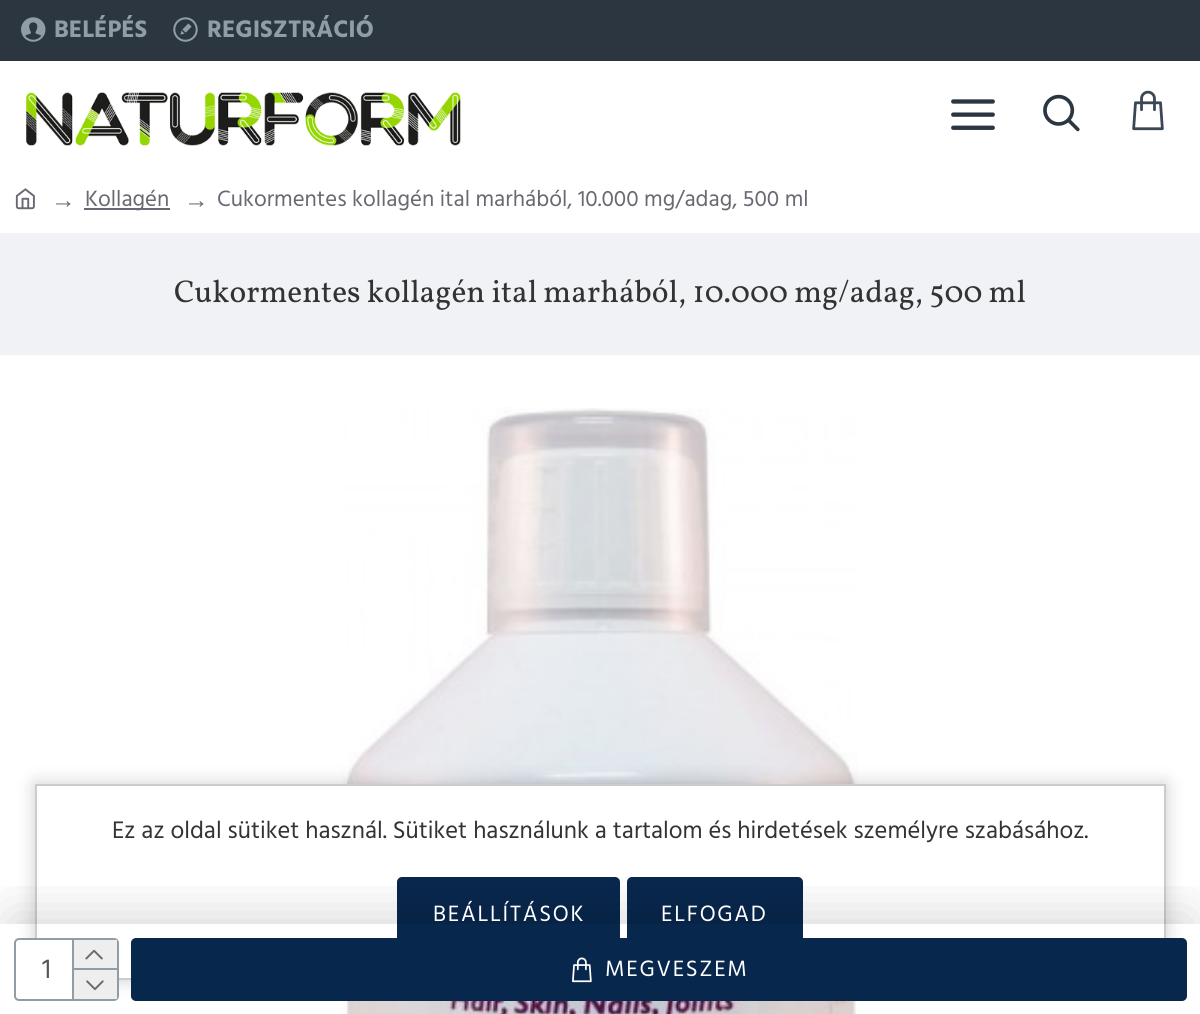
import math
import cairocffi as cairo

surface = cairo.ImageSurface(cairo.FORMAT_RGB24, 1200, 1014)
ctx = cairo.Context(surface)
options = cairo.FontOptions()
options.set_hint_metrics(cairo.HINT_METRICS_OFF)
options.set_hint_style(cairo.HINT_STYLE_NONE)
ctx.set_font_options(options)
ctx.set_miter_limit(4)


def rgb(r, g, b):
    ctx.set_source_rgb(r / 255, g / 255, b / 255)


def face(family, size, italic, bold):
    ctx.select_font_face(family, cairo.FONT_SLANT_ITALIC if italic else cairo.FONT_SLANT_NORMAL, cairo.FONT_WEIGHT_BOLD if bold else cairo.FONT_WEIGHT_NORMAL)
    ctx.set_font_size(size)


def label(x, y, s):
    ctx.move_to(x, y)
    ctx.show_text(s)


def tracked(x, y, s, letter, word):
    ctx.move_to(x, y)
    for ch in s:
        ctx.show_text(ch)
        ctx.rel_move_to(letter + word * (ch == ' '), 0)


def rect(x, y, w, h):
    ctx.rectangle(x, y, w, h)
    ctx.fill()


def rrect(x, y, w, h, r):
    ctx.new_sub_path()
    for i, (u, v) in enumerate([(x + w - r, y + h - r), (x + r, y + h - r), (x + r, y + r), (x + w - r, y + r)]):
        ctx.arc(u, v, r, i * math.pi / 2, (i + 1) * math.pi / 2)
    ctx.close_path()


def soft_shadow(x, y, w, h, r, blur, alpha):
    ctx.push_group_with_content(cairo.CONTENT_ALPHA)
    ctx.set_operator(cairo.OPERATOR_SOURCE)
    for i in range(15, -16, -2):
        e = blur * i / 6
        if min(w, h) + 2 * e > 0:
            ctx.set_source_rgba(0, 0, 0, alpha * math.erfc((i - 1) / 8.5) / 2)
            rrect(x - e, y - e, w + 2 * e, h + 2 * e, max(0, min(r + e + blur * .6, min(w, h) / 2 + e)))
            ctx.fill()
    ctx.mask(ctx.pop_group())


def image(path, x, y, w, h):
    ctx.save()
    ctx.set_source_surface(cairo.ImageSurface.create_from_png(path), x, y)
    ctx.rectangle(x, y, w, h)
    ctx.fill()
    ctx.restore()


rgb(255, 255, 255)
ctx.paint()
rgb(44, 54, 64)
rect(0, 0, 1200, 61)
image('image0.png', 21, 17, 25, 25)
face('Hind Madurai', 24.5, 0, 1)
rgb(143, 157, 166)
label(54, 37, 'BELÉPÉS')
image('image1.png', 173, 17, 25, 25)
label(207, 37, 'REGISZTRÁCIÓ')
image('image2.png', 26, 92, 435, 54)
image('image3.png', 951, 99, 44, 31)
image('image4.png', 1043, 94, 37, 38)
image('image5.png', 1132, 90, 32, 41)
image('image6.png', 15, 188, 20, 22)
face('Liberation Serif', 24.5, 0, 0)
rgb(105, 105, 115)
label(51, 208, '→')
rect(84, 208, 86, 2)
face('Hind Madurai', 22.75, 0, 0)
label(85, 206, 'Kollagén')
face('Liberation Serif', 24.5, 0, 0)
label(184, 208, '→')
face('Hind Madurai', 22.75, 0, 0)
label(217, 206, 'Cukormentes kollagén ital marhából, 10.000 mg/adag, 500 ml')
rgb(240, 242, 245)
rect(0, 233, 1200, 122)
face('Vollkorn', 31.5, 0, 0)
rgb(51, 51, 51)
label(174, 302, 'Cukormentes kollagén ital marhából, 10.000 mg/adag, 500 ml')
image('image7.png', 341, 407, 517, 607)
rgb(0, 0, 0)
soft_shadow(35, 784, 1131, 196, 0, 9, 0.2)
rgb(255, 255, 255)
ctx.rectangle(36, 785, 1129, 194)
ctx.fill_preserve()
rgb(204, 204, 204)
ctx.stroke()
rgb(8, 39, 77)
rrect(397, 877, 223, 75, 5)
ctx.fill()
rrect(627, 877, 176, 75, 5)
ctx.fill()
ctx.save()
ctx.rectangle(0, 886, 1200, 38)
ctx.clip()
rgb(0, 0, 0)
soft_shadow(9, 915, 1183, 74, 0, 26, 0.15)
ctx.restore()
rrect(15, 939, 103, 61, 4)
rgb(143, 157, 166)
ctx.stroke()
rgb(255, 255, 255)
rrect(16, 940, 101, 59, 5)
ctx.fill()
face('Hind Madurai', 28, 0, 0)
rgb(85, 85, 85)
label(42, 978, '1')
rgb(143, 157, 166)
rect(72, 940, 2, 59)
rgb(238, 238, 238)
rect(74, 940, 43, 28)
rgb(143, 157, 166)
rect(74, 968, 43, 2)
image('image8.png', 85, 949, 18, 11)
rgb(238, 238, 238)
rect(74, 970, 43, 29)
image('image9.png', 86, 980, 18, 11)
rgb(8, 39, 77)
rrect(131, 938, 1056, 63, 5)
ctx.fill()
image('image10.png', 572, 957, 20, 26)
face('Hind Madurai', 22.75, 0, 0)
rgb(255, 255, 255)
tracked(605, 976, 'MEGVESZEM', 1.75, 0)
face('Hind Madurai', 24.5, 0, 0)
rgb(51, 51, 51)
label(112, 838, 'Ez az oldal sütiket használ. Sütiket használunk a tartalom és hirdetések személyre szabásához.')
face('Hind Madurai', 22.75, 0, 0)
rgb(255, 255, 255)
tracked(433, 921, 'BEÁLLÍTÁSOK', 1.75, 0)
tracked(661, 921, 'ELFOGAD', 1.75, 0)
surface.write_to_png('render.png')
